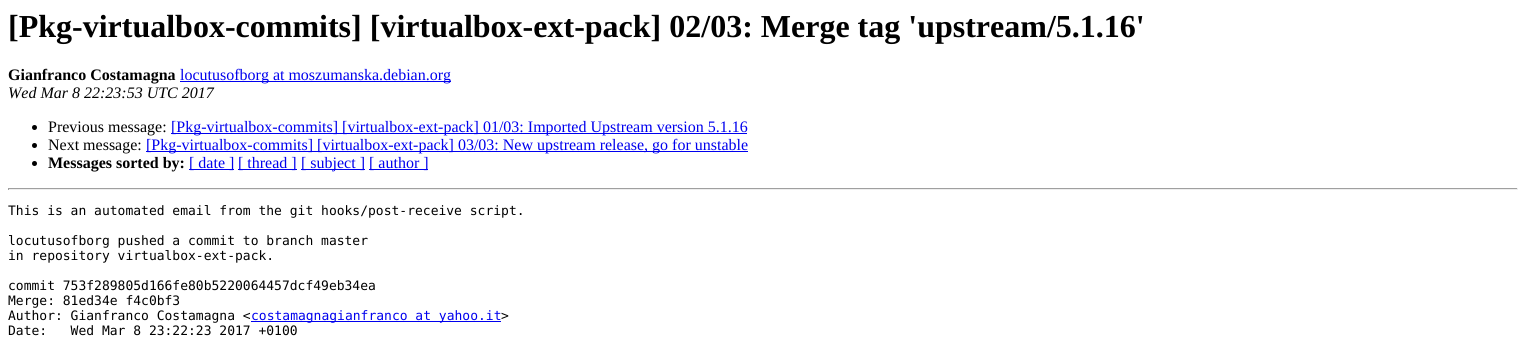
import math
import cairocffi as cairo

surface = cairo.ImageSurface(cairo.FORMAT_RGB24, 1526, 347)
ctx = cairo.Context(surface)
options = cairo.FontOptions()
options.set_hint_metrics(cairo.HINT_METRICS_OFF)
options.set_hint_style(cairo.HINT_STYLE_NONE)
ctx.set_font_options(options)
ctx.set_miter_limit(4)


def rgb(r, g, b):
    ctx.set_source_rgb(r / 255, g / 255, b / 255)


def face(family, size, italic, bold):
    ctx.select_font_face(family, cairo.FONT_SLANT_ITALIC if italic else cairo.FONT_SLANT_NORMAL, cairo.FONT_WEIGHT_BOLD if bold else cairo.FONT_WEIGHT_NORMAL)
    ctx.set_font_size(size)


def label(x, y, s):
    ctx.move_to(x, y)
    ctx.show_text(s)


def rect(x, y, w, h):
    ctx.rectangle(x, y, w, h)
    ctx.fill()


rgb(255, 255, 255)
ctx.paint()
face('Liberation Serif', 32, 0, 1)
rgb(0, 0, 0)
label(8, 37, '[Pkg-virtualbox-commits] [virtualbox-ext-pack] 02/03: Merge tag \'upstream/5.1.16\'')
face('Liberation Serif', 16, 0, 1)
label(8, 80, 'Gianfranco Costamagna')
rgb(0, 0, 238)
rect(180, 81, 271, 1)
face('Liberation Serif', 16, 0, 0)
label(180, 80, 'locutusofborg at moszumanska.debian.org')
face('Liberation Serif', 16, 1, 0)
rgb(0, 0, 0)
label(8, 98, 'Wed Mar 8 22:23:53 UTC 2017')
ctx.new_path()
ctx.arc(34.5, 127.5, 2.5, 0, 2 * math.pi)
ctx.fill()
face('Liberation Serif', 16, 0, 0)
label(48, 132, 'Previous message:')
rgb(0, 0, 238)
rect(171, 133, 576, 1)
label(171, 132, '[Pkg-virtualbox-commits] [virtualbox-ext-pack] 01/03: Imported Upstream version 5.1.16')
rgb(0, 0, 0)
ctx.new_path()
ctx.arc(34.5, 145.5, 2.5, 0, 2 * math.pi)
ctx.fill()
label(48, 150, 'Next message:')
rgb(0, 0, 238)
rect(146, 151, 602, 1)
label(146, 150, '[Pkg-virtualbox-commits] [virtualbox-ext-pack] 03/03: New upstream release, go for unstable')
rgb(0, 0, 0)
ctx.new_path()
ctx.arc(34.5, 163.5, 2.5, 0, 2 * math.pi)
ctx.fill()
face('Liberation Serif', 16, 0, 1)
label(48, 168, 'Messages sorted by:')
rgb(0, 0, 238)
rect(189, 169, 45, 1)
face('Liberation Serif', 16, 0, 0)
label(189, 168, '[ date ]')
rect(238, 169, 59, 1)
label(238, 168, '[ thread ]')
rect(301, 169, 64, 1)
label(301, 168, '[ subject ]')
rect(369, 169, 59, 1)
label(369, 168, '[ author ]')
rgb(159, 159, 159)
rect(8, 188, 1510, 1)
rgb(238, 238, 238)
rect(1517, 188, 1, 2)
rect(8, 189, 1510, 1)
rgb(159, 159, 159)
rect(8, 188, 1, 2)
face('DejaVu Sans Mono', 13, 0, 0)
rgb(0, 0, 0)
label(8, 215, 'This is an automated email from the git hooks/post-receive script.')
label(8, 245, 'locutusofborg pushed a commit to branch master')
label(8, 260, 'in repository virtualbox-ext-pack.')
label(8, 290, 'commit 753f289805d166fe80b5220064457dcf49eb34ea')
label(8, 305, 'Merge: 81ed34e f4c0bf3')
label(8, 320, 'Author: Gianfranco Costamagna <')
rgb(0, 0, 238)
rect(251, 321, 250, 1)
label(251, 320, 'costamagnagianfranco at yahoo.it')
rgb(0, 0, 0)
label(501, 320, '>')
label(8, 335, 'Date:   Wed Mar 8 23:22:23 2017 +0100')
surface.write_to_png('render.png')
